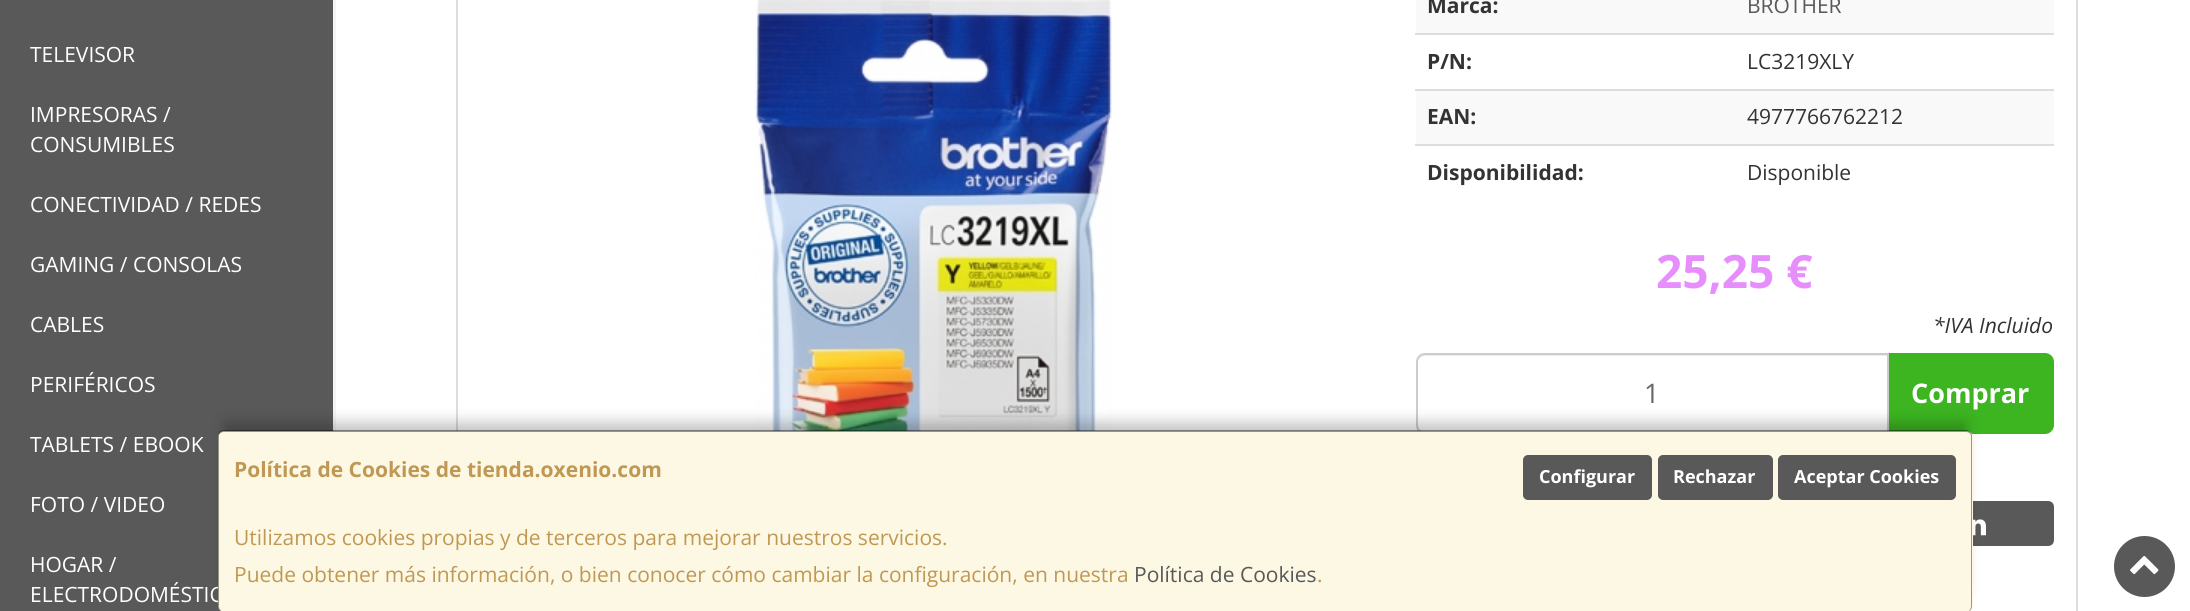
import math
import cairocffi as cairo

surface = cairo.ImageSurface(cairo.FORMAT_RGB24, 2190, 611)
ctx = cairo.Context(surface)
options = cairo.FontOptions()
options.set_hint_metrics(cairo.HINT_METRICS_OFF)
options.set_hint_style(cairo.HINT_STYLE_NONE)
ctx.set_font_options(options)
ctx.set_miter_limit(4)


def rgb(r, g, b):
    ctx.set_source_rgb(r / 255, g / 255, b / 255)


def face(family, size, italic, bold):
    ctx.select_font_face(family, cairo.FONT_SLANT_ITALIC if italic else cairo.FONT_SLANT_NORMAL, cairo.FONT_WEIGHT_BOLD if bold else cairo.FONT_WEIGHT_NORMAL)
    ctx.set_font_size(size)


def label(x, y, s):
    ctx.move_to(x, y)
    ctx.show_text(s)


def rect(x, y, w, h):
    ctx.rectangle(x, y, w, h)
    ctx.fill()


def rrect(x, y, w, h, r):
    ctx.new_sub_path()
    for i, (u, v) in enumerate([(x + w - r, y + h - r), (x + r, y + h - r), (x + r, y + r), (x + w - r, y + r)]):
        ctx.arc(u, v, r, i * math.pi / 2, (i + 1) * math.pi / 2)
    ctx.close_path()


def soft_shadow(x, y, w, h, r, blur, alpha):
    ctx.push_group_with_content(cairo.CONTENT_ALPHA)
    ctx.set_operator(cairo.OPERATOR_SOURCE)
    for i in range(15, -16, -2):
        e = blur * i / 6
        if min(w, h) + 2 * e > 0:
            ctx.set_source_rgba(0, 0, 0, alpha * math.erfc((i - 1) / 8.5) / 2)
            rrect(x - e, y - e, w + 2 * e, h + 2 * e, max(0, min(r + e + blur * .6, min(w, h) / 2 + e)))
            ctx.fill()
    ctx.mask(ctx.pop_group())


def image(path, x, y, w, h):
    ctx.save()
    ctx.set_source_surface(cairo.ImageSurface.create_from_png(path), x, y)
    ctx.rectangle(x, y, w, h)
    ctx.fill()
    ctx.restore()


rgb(255, 255, 255)
ctx.paint()
rgb(245, 245, 245)
rect(333, 0, 3, 431)
rgb(89, 89, 90)
rect(0, 0, 333, 611)
face('Open Sans', 21, 0, 0)
rgb(255, 255, 255)
label(30, 62, 'TELEVISOR')
label(30, 122, 'IMPRESORAS /')
label(30, 152, 'CONSUMIBLES')
label(30, 212, 'CONECTIVIDAD / REDES')
label(30, 272, 'GAMING / CONSOLAS')
label(30, 332, 'CABLES')
label(30, 392, 'PERIFÉRICOS')
label(30, 452, 'TABLETS / EBOOK')
label(30, 512, 'FOTO / VIDEO')
label(30, 572, 'HOGAR /')
label(30, 602, 'ELECTRODOMÉSTIC')
ctx.rectangle(457, -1, 1620, 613)
rgb(221, 221, 221)
ctx.stroke()
image('image0.png', 755, 0, 357, 431)
rgb(249, 249, 249)
rect(1416, 0, 638, 33)
face('Open Sans', 21, 0, 1)
rgb(51, 51, 51)
label(1427, 13, 'Marca:')
face('Open Sans', 21, 0, 0)
rgb(89, 89, 90)
label(1747, 13, 'BROTHER')
face('Open Sans', 21, 0, 1)
rgb(51, 51, 51)
label(1427, 69, 'P/N:')
rgb(221, 221, 221)
rect(1415, 33, 639, 2)
face('Open Sans', 21, 0, 0)
rgb(51, 51, 51)
label(1747, 69, 'LC3219XLY')
rgb(249, 249, 249)
rect(1416, 91, 638, 53)
face('Open Sans', 21, 0, 1)
rgb(51, 51, 51)
label(1427, 124, 'EAN:')
rgb(221, 221, 221)
rect(1415, 89, 639, 2)
face('Open Sans', 21, 0, 0)
rgb(51, 51, 51)
label(1747, 124, '4977766762212')
face('Open Sans', 21, 0, 1)
label(1427, 180, 'Disponibilidad:')
rgb(221, 221, 221)
rect(1415, 144, 639, 2)
face('Open Sans', 21, 0, 0)
rgb(51, 51, 51)
label(1747, 180, 'Disponible')
face('Open Sans', 46, 0, 1)
rgb(230, 143, 252)
label(1656, 288, '25,25 €')
face('Open Sans', 21, 1, 0)
rgb(51, 51, 51)
label(1933, 333, '*IVA Incluido')
rgb(60, 181, 33)
ctx.new_path()
ctx.move_to(1887, 353)
ctx.line_to(2045, 353)
ctx.curve_to(2050, 353, 2054, 357, 2054, 362)
ctx.line_to(2054, 425)
ctx.curve_to(2054, 430, 2050, 434, 2045, 434)
ctx.line_to(1887, 434)
ctx.close_path()
ctx.fill()
rgb(255, 255, 255)
ctx.new_path()
ctx.move_to(1425, 353)
ctx.line_to(1889, 353)
ctx.line_to(1889, 434)
ctx.line_to(1425, 434)
ctx.curve_to(1420, 434, 1416, 430, 1416, 425)
ctx.line_to(1416, 362)
ctx.curve_to(1416, 357, 1420, 353, 1425, 353)
ctx.close_path()
ctx.fill()
rgb(236, 236, 236)
ctx.new_path()
ctx.move_to(1425, 356)
ctx.line_to(1887, 356)
ctx.line_to(1887, 354)
ctx.line_to(1426, 354)
ctx.curve_to(1421, 354, 1418, 358, 1418, 363)
ctx.curve_to(1418, 359, 1421, 356, 1425, 356)
ctx.close_path()
ctx.fill()
ctx.new_path()
ctx.move_to(1425, 354)
ctx.line_to(1888, 354)
ctx.line_to(1888, 433)
ctx.line_to(1425, 433)
ctx.curve_to(1420.5, 433, 1417, 429.5, 1417, 425)
ctx.line_to(1417, 362)
ctx.curve_to(1417, 357.5, 1420.5, 354, 1425, 354)
ctx.close_path()
rgb(204, 204, 204)
ctx.stroke()
face('Open Sans', 27, 0, 0)
rgb(102, 102, 102)
label(1644, 403, '1')
face('Open Sans', 27, 0, 1)
rgb(255, 255, 255)
label(1911, 403, 'Comprar')
rgb(89, 89, 90)
ctx.new_path()
ctx.move_to(1895, 501)
ctx.line_to(2048, 501)
ctx.curve_to(2051.5, 501, 2054, 503.5, 2054, 507)
ctx.line_to(2054, 540)
ctx.curve_to(2054, 543.5, 2051.5, 546, 2048, 546)
ctx.line_to(1895, 546)
ctx.close_path()
ctx.fill()
image('image1.png', 1973, 519, 13, 17)
rgb(0, 0, 0)
soft_shadow(225, 423, 1740, 167, 0, 7.5, 0.25)
rgb(252, 248, 227)
rrect(218, 431, 1755, 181, 6)
ctx.fill()
ctx.set_source_rgba(0, 0, 0, 0.4)
ctx.set_fill_rule(cairo.FILL_RULE_EVEN_ODD)
ctx.new_path()
ctx.move_to(224, 430)
ctx.line_to(1966, 430)
ctx.curve_to(1970, 430, 1972, 433, 1972, 436)
ctx.line_to(1972, 606)
ctx.curve_to(1972, 609, 1970, 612, 1966, 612)
ctx.line_to(224, 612)
ctx.curve_to(220, 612, 218, 609, 218, 606)
ctx.line_to(218, 436)
ctx.curve_to(218, 433, 220, 430, 224, 430)
ctx.close_path()
ctx.move_to(224, 432)
ctx.line_to(1966, 432)
ctx.curve_to(1969, 432, 1971, 434, 1971, 436)
ctx.line_to(1971, 606)
ctx.curve_to(1971, 609, 1969, 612, 1966, 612)
ctx.line_to(224, 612)
ctx.curve_to(221, 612, 219, 609, 219, 606)
ctx.line_to(219, 436)
ctx.curve_to(219, 434, 221, 432, 224, 432)
ctx.close_path()
ctx.fill()
face('Open Sans', 21, 0, 1)
rgb(192, 152, 83)
label(234, 477, 'Política de Cookies de tienda.oxenio.com')
rgb(89, 89, 90)
rrect(1524, 456, 127, 43, 4)
ctx.fill_preserve()
ctx.stroke()
face('Open Sans', 18, 0, 1)
rgb(255, 255, 255)
label(1539, 483, 'Configurar')
rgb(89, 89, 90)
rrect(1659, 456, 113, 43, 4)
ctx.fill_preserve()
ctx.stroke()
rgb(255, 255, 255)
label(1673, 483, 'Rechazar')
rgb(89, 89, 90)
rrect(1779, 456, 176, 43, 4)
ctx.fill_preserve()
ctx.stroke()
rgb(255, 255, 255)
label(1794, 483, 'Aceptar Cookies')
face('Open Sans', 21, 0, 0)
rgb(192, 152, 83)
label(234, 545, 'Utilizamos cookies propias y de terceros para mejorar nuestros servicios.')
label(234, 582, 'Puede obtener más información, o bien conocer cómo cambiar la configuración, en nuestra')
rgb(89, 89, 90)
label(1134, 582, 'Política de Cookies')
rgb(192, 152, 83)
label(1317, 582, '.')
rgb(89, 89, 90)
ctx.new_path()
ctx.arc(2144.5, 566.5, 30.5, 0, 2 * math.pi)
ctx.fill()
image('image2.png', 2130, 556, 29, 19)
surface.write_to_png('render.png')
